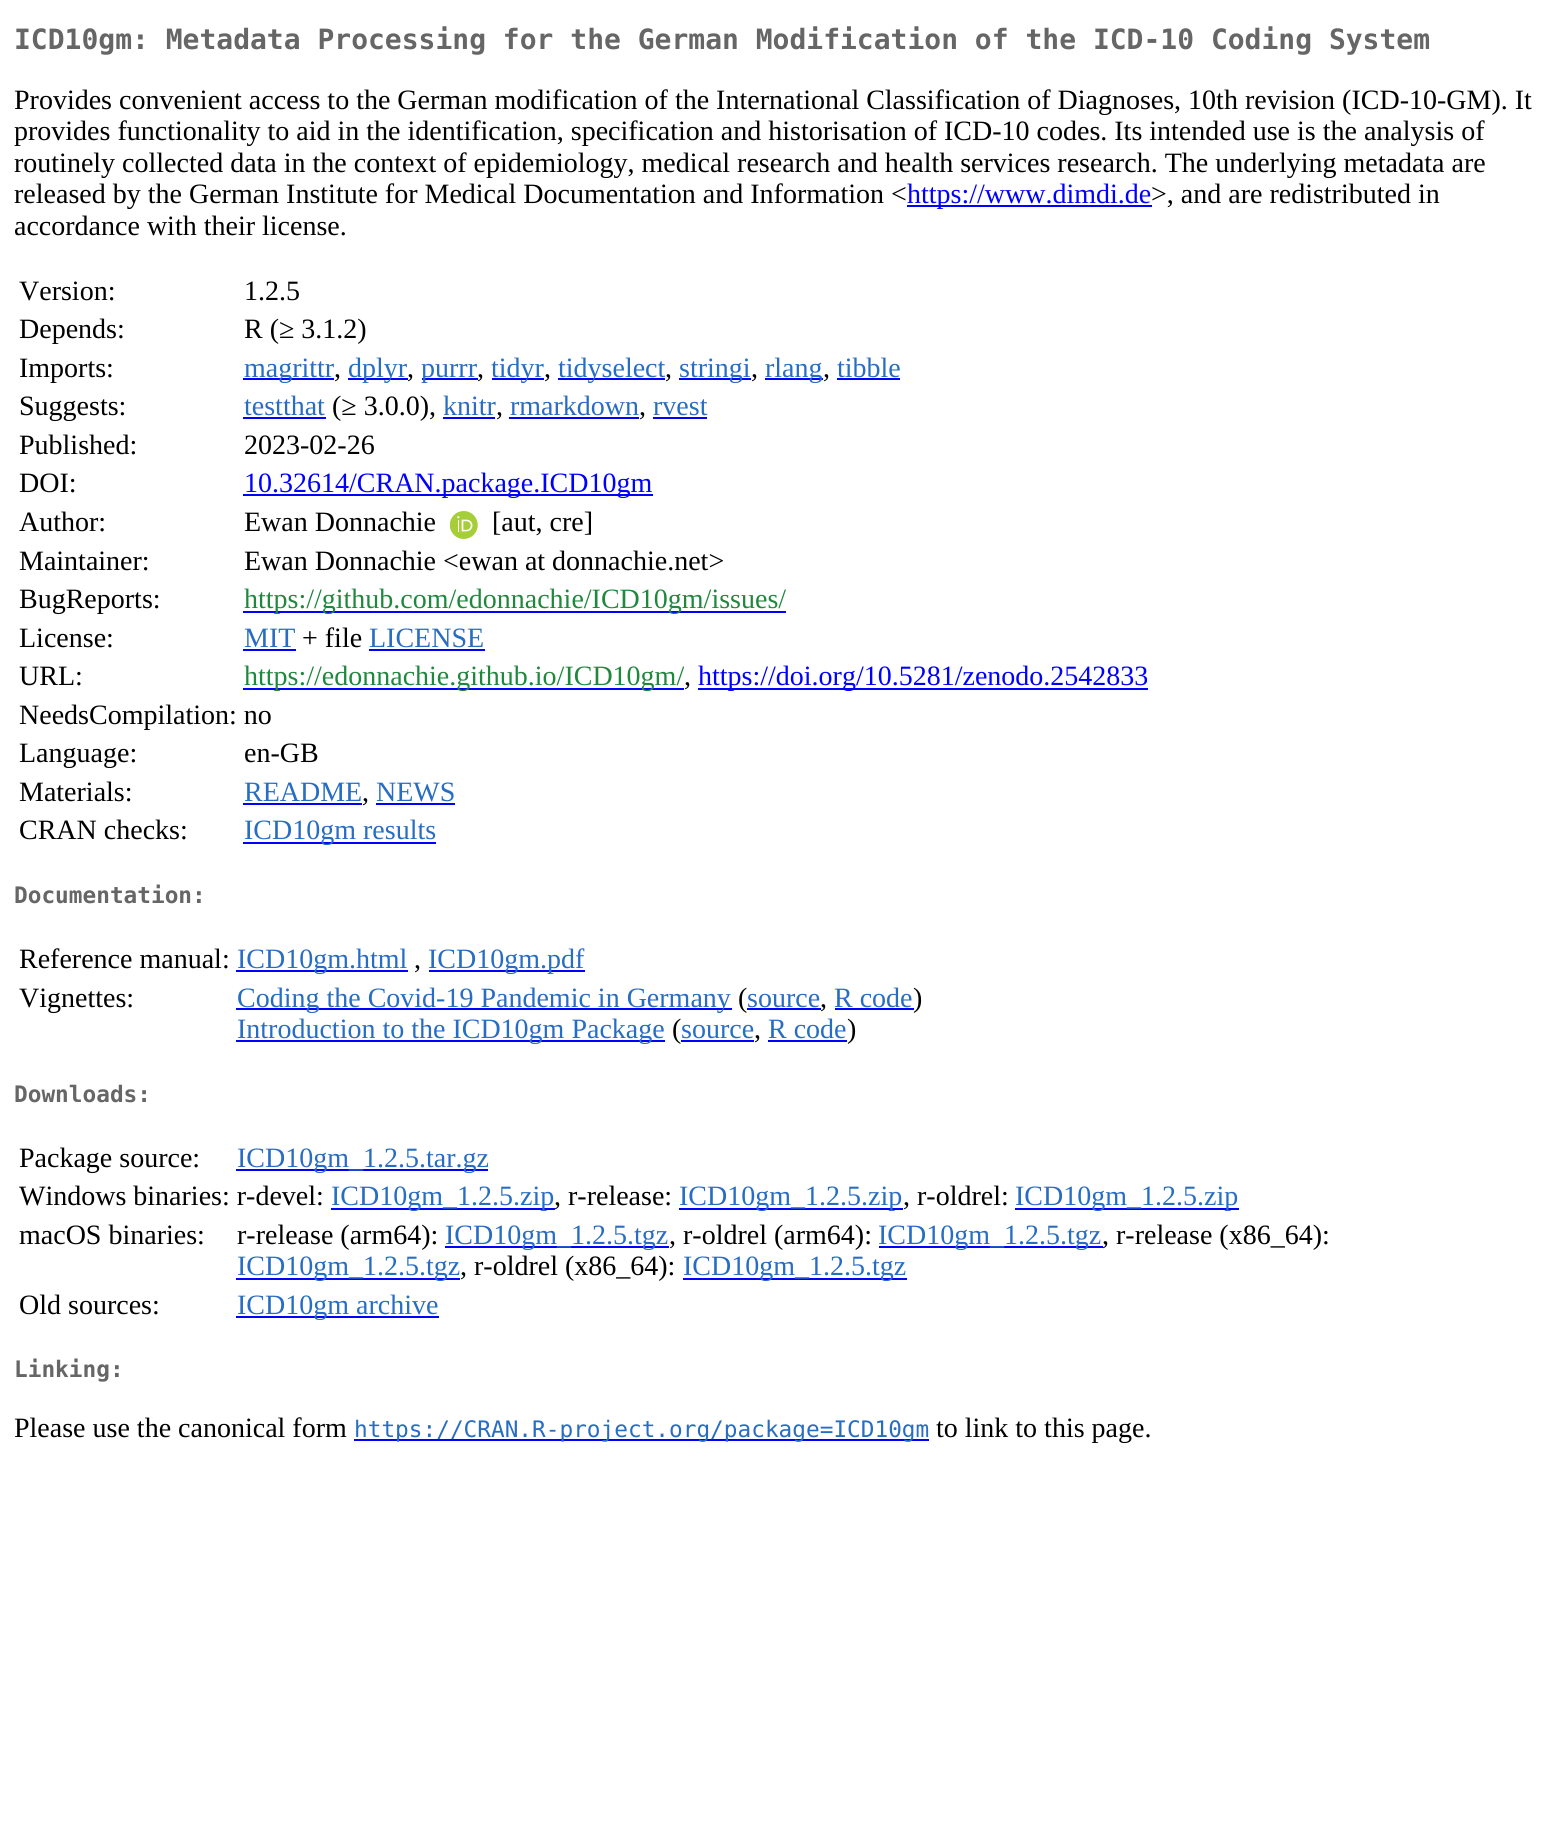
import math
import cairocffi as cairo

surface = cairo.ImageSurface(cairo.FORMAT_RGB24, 1556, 1842)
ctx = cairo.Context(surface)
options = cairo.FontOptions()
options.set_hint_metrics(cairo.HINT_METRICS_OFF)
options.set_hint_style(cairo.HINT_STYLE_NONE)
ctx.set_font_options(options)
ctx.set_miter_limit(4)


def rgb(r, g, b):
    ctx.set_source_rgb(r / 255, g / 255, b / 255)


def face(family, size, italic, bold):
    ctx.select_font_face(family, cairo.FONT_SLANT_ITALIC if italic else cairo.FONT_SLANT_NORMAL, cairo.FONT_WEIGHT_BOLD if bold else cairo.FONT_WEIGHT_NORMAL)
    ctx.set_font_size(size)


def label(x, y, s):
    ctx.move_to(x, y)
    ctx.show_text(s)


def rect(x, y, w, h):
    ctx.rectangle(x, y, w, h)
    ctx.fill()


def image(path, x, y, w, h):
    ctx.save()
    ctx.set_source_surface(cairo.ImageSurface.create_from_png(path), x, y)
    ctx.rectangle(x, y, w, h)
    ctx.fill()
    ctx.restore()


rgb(255, 255, 255)
ctx.paint()
face('DejaVu Sans Mono', 28, 0, 1)
rgb(102, 102, 102)
label(14, 49, 'ICD10gm: Metadata Processing for the German Modification of the ICD-10 Coding System')
face('Liberation Serif', 28, 0, 0)
rgb(0, 0, 0)
label(14, 109, 'Provides convenient access to the German modification of the International Classification of Diagnoses, 10th revision (ICD-10-GM). It')
label(14, 140, 'provides functionality to aid in the identification, specification and historisation of ICD-10 codes. Its intended use is the analysis of')
label(14, 172, 'routinely collected data in the context of epidemiology, medical research and health services research. The underlying metadata are')
label(14, 203, 'released by the German Institute for Medical Documentation and Information <')
rgb(0, 0, 255)
rect(907, 205, 245, 2)
label(907, 203, 'https://www.dimdi.de')
rgb(0, 0, 0)
label(1151, 203, '>, and are redistributed in')
label(14, 235, 'accordance with their license.')
label(19, 300, 'Version:')
label(244, 300, '1.2.5')
label(19, 338, 'Depends:')
label(244, 338, 'R (≥ 3.1.2)')
label(19, 377, 'Imports:')
rgb(0, 0, 255)
rect(243, 378, 91, 2)
rgb(39, 109, 195)
label(244, 377, 'magrittr')
rgb(0, 0, 0)
label(334, 377, ',')
rgb(0, 0, 255)
rect(348, 378, 60, 2)
rgb(39, 109, 195)
label(348, 377, 'dplyr')
rgb(0, 0, 0)
label(407, 377, ',')
rgb(0, 0, 255)
rect(422, 378, 56, 2)
rgb(39, 109, 195)
label(421, 377, 'purrr')
rgb(0, 0, 0)
label(477, 377, ',')
rgb(0, 0, 255)
rect(492, 378, 52, 2)
rgb(39, 109, 195)
label(491, 377, 'tidyr')
rgb(0, 0, 0)
label(544, 377, ',')
rgb(0, 0, 255)
rect(558, 378, 107, 2)
rgb(39, 109, 195)
label(558, 377, 'tidyselect')
rgb(0, 0, 0)
label(665, 377, ',')
rgb(0, 0, 255)
rect(679, 378, 72, 2)
rgb(39, 109, 195)
label(679, 377, 'stringi')
rgb(0, 0, 0)
label(751, 377, ',')
rgb(0, 0, 255)
rect(765, 378, 58, 2)
rgb(39, 109, 195)
label(765, 377, 'rlang')
rgb(0, 0, 0)
label(823, 377, ',')
rgb(39, 109, 195)
label(837, 377, 'tibble')
rgb(0, 0, 255)
rect(837, 378, 63, 2)
rgb(0, 0, 0)
label(19, 415, 'Suggests:')
rgb(39, 109, 195)
label(244, 415, 'testthat')
rgb(0, 0, 255)
rect(243, 417, 83, 2)
rgb(0, 0, 0)
label(332, 415, '(≥ 3.0.0),')
rgb(39, 109, 195)
label(443, 415, 'knitr')
rgb(0, 0, 255)
rect(443, 417, 52, 2)
rgb(0, 0, 0)
label(496, 415, ',')
rgb(39, 109, 195)
label(510, 415, 'rmarkdown')
rgb(0, 0, 255)
rect(509, 417, 130, 2)
rgb(0, 0, 0)
label(639, 415, ',')
rgb(39, 109, 195)
label(653, 415, 'rvest')
rgb(0, 0, 255)
rect(653, 417, 54, 2)
rgb(0, 0, 0)
label(19, 454, 'Published:')
label(244, 454, '2023-02-26')
label(19, 492, 'DOI:')
rgb(0, 0, 255)
rect(243, 494, 410, 2)
label(244, 492, '10.32614/CRAN.package.ICD10gm')
rgb(0, 0, 0)
label(19, 531, 'Author:')
label(244, 531, 'Ewan Donnachie')
image('image0.png', 450, 511, 28, 28)
label(492, 531, '[aut, cre]')
label(19, 570, 'Maintainer:')
label(244, 570, 'Ewan Donnachie <ewan at donnachie.net>')
label(19, 608, 'BugReports:')
rgb(0, 0, 255)
rect(243, 611, 543, 2)
rgb(31, 136, 61)
label(244, 608, 'https://github.com/edonnachie/ICD10gm/issues/')
rgb(0, 0, 0)
label(19, 647, 'License:')
rgb(39, 109, 195)
label(244, 647, 'MIT')
rgb(0, 0, 255)
rect(243, 649, 53, 2)
rgb(0, 0, 0)
label(302, 647, '+ file')
rgb(39, 109, 195)
label(369, 647, 'LICENSE')
rgb(0, 0, 255)
rect(369, 649, 116, 2)
rgb(0, 0, 0)
label(19, 685, 'URL:')
rgb(0, 0, 255)
rect(243, 688, 441, 2)
rgb(31, 136, 61)
label(244, 685, 'https://edonnachie.github.io/ICD10gm/')
rgb(0, 0, 0)
label(684, 685, ',')
rgb(0, 0, 255)
rect(698, 688, 450, 2)
label(698, 685, 'https://doi.org/10.5281/zenodo.2542833')
rgb(0, 0, 0)
label(19, 724, 'NeedsCompilation: no')
label(19, 762, 'Language:')
label(244, 762, 'en-GB')
label(19, 801, 'Materials:')
rgb(39, 109, 195)
label(244, 801, 'README')
rgb(0, 0, 255)
rect(243, 803, 119, 2)
rgb(0, 0, 0)
label(362, 801, ',')
rgb(39, 109, 195)
label(376, 801, 'NEWS')
rgb(0, 0, 255)
rect(376, 803, 79, 2)
rgb(0, 0, 0)
label(19, 839, 'CRAN checks:')
rgb(0, 0, 255)
rect(243, 842, 193, 2)
rgb(39, 109, 195)
label(244, 839, 'ICD10gm results')
face('DejaVu Sans Mono', 22.75, 0, 1)
rgb(102, 102, 102)
label(14, 903, 'Documentation:')
face('Liberation Serif', 28, 0, 0)
rgb(0, 0, 0)
label(19, 968, 'Reference manual:')
rgb(0, 0, 255)
rect(236, 970, 172, 2)
rgb(39, 109, 195)
label(237, 968, 'ICD10gm.html')
rgb(0, 0, 0)
label(414, 968, ',')
rgb(0, 0, 255)
rect(429, 970, 156, 2)
rgb(39, 109, 195)
label(428, 968, 'ICD10gm.pdf')
rgb(0, 0, 0)
label(19, 1007, 'Vignettes:')
rgb(0, 0, 255)
rect(236, 1008, 496, 2)
rgb(39, 109, 195)
label(237, 1007, 'Coding the Covid-19 Pandemic in Germany')
rgb(0, 0, 0)
label(738, 1007, '(')
rgb(39, 109, 195)
label(747, 1007, 'source')
rgb(0, 0, 255)
rect(747, 1008, 74, 2)
rgb(0, 0, 0)
label(820, 1007, ',')
rgb(39, 109, 195)
label(834, 1007, 'R code')
rgb(0, 0, 255)
rect(835, 1008, 79, 2)
rgb(0, 0, 0)
label(913, 1007, ')')
rgb(0, 0, 255)
rect(236, 1040, 429, 2)
rgb(39, 109, 195)
label(237, 1038, 'Introduction to the ICD10gm Package')
rgb(0, 0, 0)
label(672, 1038, '(')
rgb(39, 109, 195)
label(681, 1038, 'source')
rgb(0, 0, 255)
rect(681, 1040, 73, 2)
rgb(0, 0, 0)
label(754, 1038, ',')
rgb(39, 109, 195)
label(768, 1038, 'R code')
rgb(0, 0, 255)
rect(768, 1040, 79, 2)
rgb(0, 0, 0)
label(847, 1038, ')')
face('DejaVu Sans Mono', 22.75, 0, 1)
rgb(102, 102, 102)
label(14, 1102, 'Downloads:')
face('Liberation Serif', 28, 0, 0)
rgb(0, 0, 0)
label(19, 1167, 'Package source:')
rgb(0, 0, 255)
rect(236, 1169, 252, 2)
rgb(39, 109, 195)
label(237, 1167, 'ICD10gm_1.2.5.tar.gz')
rgb(0, 0, 0)
label(19, 1205, 'Windows binaries: r-devel:')
rgb(0, 0, 255)
rect(331, 1208, 224, 2)
rgb(39, 109, 195)
label(331, 1205, 'ICD10gm_1.2.5.zip')
rgb(0, 0, 0)
label(554, 1205, ', r-release:')
rgb(0, 0, 255)
rect(679, 1208, 224, 2)
rgb(39, 109, 195)
label(679, 1205, 'ICD10gm_1.2.5.zip')
rgb(0, 0, 0)
label(903, 1205, ', r-oldrel:')
rgb(0, 0, 255)
rect(1015, 1208, 224, 2)
rgb(39, 109, 195)
label(1015, 1205, 'ICD10gm_1.2.5.zip')
rgb(0, 0, 0)
label(19, 1244, 'macOS binaries:')
label(237, 1244, 'r-release (arm64):')
rgb(0, 0, 255)
rect(445, 1246, 224, 2)
rgb(39, 109, 195)
label(445, 1244, 'ICD10gm_1.2.5.tgz')
rgb(0, 0, 0)
label(669, 1244, ', r-oldrel (arm64):')
rgb(0, 0, 255)
rect(879, 1246, 224, 2)
rgb(39, 109, 195)
label(878, 1244, 'ICD10gm_1.2.5.tgz')
rgb(0, 0, 0)
label(1102, 1244, ', r-release (x86_64):')
rgb(0, 0, 255)
rect(236, 1278, 224, 2)
rgb(39, 109, 195)
label(237, 1275, 'ICD10gm_1.2.5.tgz')
rgb(0, 0, 0)
label(460, 1275, ', r-oldrel (x86_64):')
rgb(0, 0, 255)
rect(683, 1278, 224, 2)
rgb(39, 109, 195)
label(683, 1275, 'ICD10gm_1.2.5.tgz')
rgb(0, 0, 0)
label(19, 1314, 'Old sources:')
rgb(0, 0, 255)
rect(236, 1316, 203, 2)
rgb(39, 109, 195)
label(237, 1314, 'ICD10gm archive')
face('DejaVu Sans Mono', 22.75, 0, 1)
rgb(102, 102, 102)
label(14, 1377, 'Linking:')
face('Liberation Serif', 28, 0, 0)
rgb(0, 0, 0)
label(14, 1437, 'Please use the canonical form')
rgb(0, 0, 255)
rect(354, 1439, 575, 2)
face('DejaVu Sans Mono', 22.75, 0, 0)
rgb(39, 109, 195)
label(354, 1437, 'https://CRAN.R-project.org/package=ICD10gm')
face('Liberation Serif', 28, 0, 0)
rgb(0, 0, 0)
label(936, 1437, 'to link to this page.')
surface.write_to_png('render.png')
